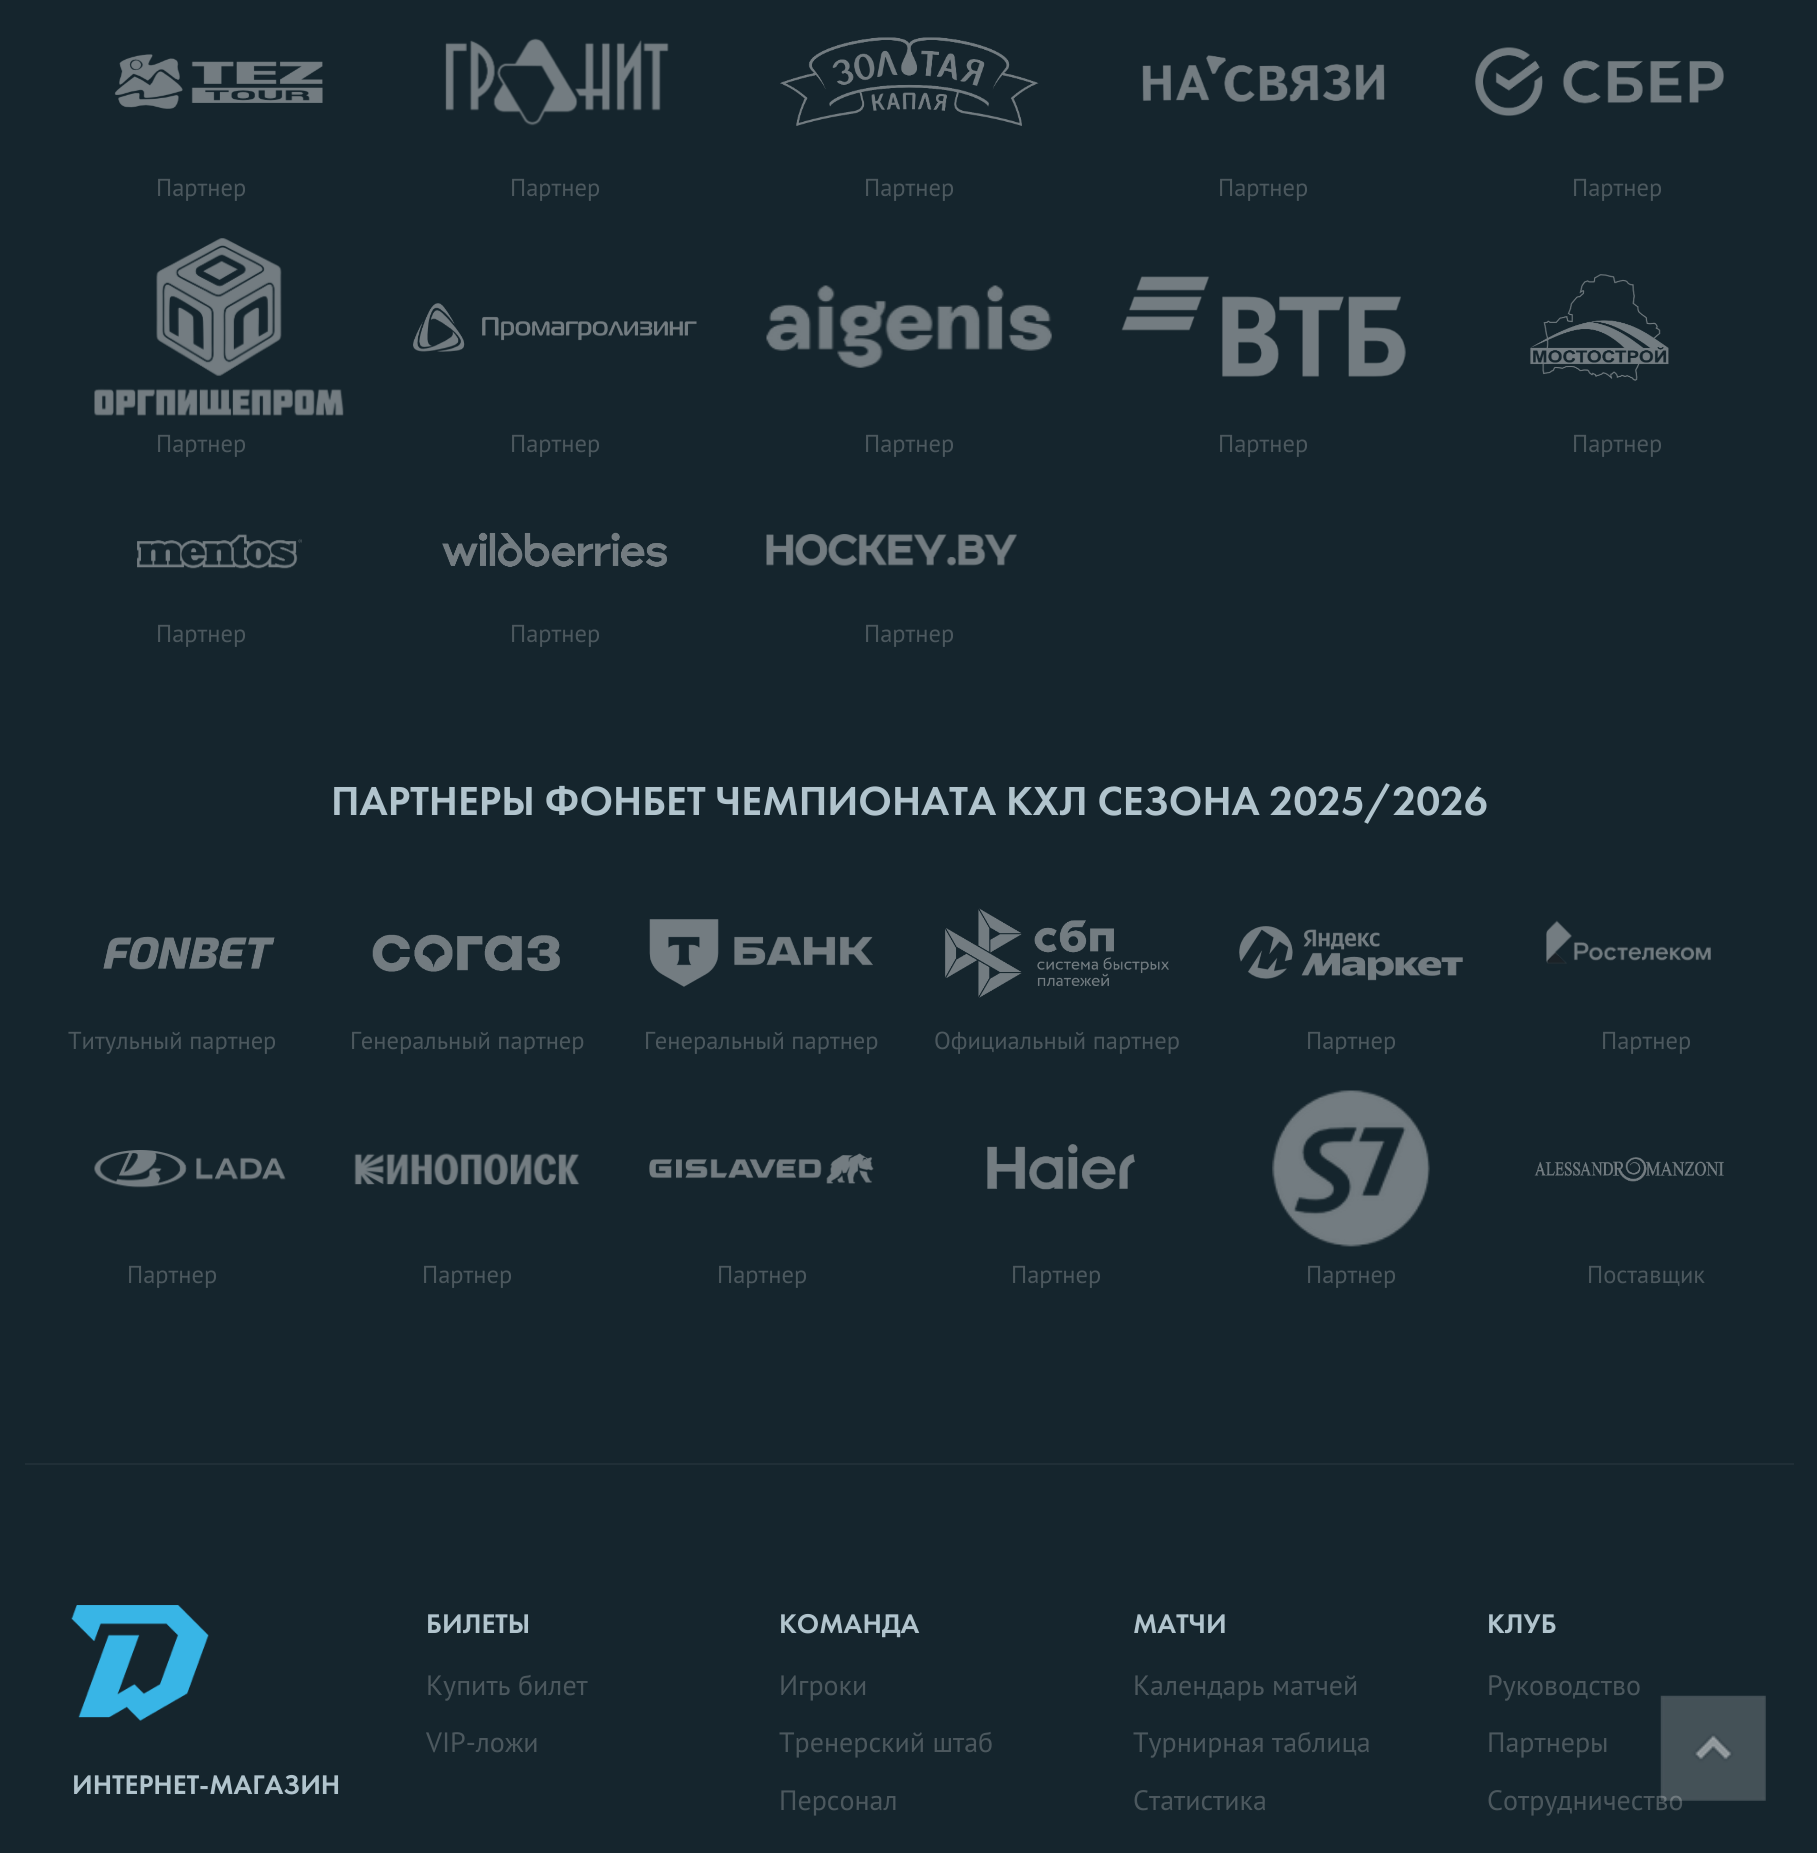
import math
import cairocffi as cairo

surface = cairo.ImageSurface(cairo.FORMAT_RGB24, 1817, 1853)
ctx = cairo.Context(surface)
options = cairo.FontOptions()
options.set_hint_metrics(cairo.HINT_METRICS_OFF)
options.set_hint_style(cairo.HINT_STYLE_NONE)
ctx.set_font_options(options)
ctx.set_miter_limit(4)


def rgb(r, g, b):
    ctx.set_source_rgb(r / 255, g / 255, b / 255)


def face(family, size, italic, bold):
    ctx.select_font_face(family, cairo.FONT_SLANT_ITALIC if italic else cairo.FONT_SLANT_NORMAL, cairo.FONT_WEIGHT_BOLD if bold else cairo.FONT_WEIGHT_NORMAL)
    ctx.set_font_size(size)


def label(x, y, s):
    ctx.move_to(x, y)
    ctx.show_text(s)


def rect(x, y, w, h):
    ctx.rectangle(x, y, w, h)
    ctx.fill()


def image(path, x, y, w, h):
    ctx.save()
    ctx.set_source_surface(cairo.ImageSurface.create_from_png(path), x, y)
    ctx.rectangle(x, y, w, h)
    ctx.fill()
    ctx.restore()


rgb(21, 37, 45)
ctx.paint()
image('image0.png', 114, 54, 209, 55)
face('PT Sans', 24.5, 0, 0)
rgb(76, 88, 94)
label(156, 196, 'Партнер')
image('image1.png', 445, 38, 224, 88)
label(510, 196, 'Партнер')
image('image2.png', 780, 37, 259, 89)
label(864, 196, 'Партнер')
image('image3.png', 1142, 55, 243, 47)
label(1218, 196, 'Партнер')
image('image4.png', 1475, 47, 249, 69)
label(1572, 196, 'Партнер')
image('image5.png', 94, 238, 250, 178)
label(156, 452, 'Партнер')
image('image6.png', 413, 303, 284, 49)
label(510, 452, 'Партнер')
image('image7.png', 766, 285, 286, 83)
label(864, 452, 'Партнер')
image('image8.png', 1121, 276, 285, 101)
label(1218, 452, 'Партнер')
image('image9.png', 1530, 274, 139, 107)
label(1572, 452, 'Партнер')
image('image10.png', 137, 534, 165, 35)
label(156, 642, 'Партнер')
image('image11.png', 442, 532, 225, 35)
label(510, 642, 'Партнер')
image('image12.png', 766, 534, 251, 32)
label(864, 642, 'Партнер')
face('Futura PT Medium', 42, 0, 0)
rgb(177, 196, 205)
label(331, 815, 'ПАРТНЕРЫ ФОНБЕТ ЧЕМПИОНАТА КХЛ СЕЗОНА 2025/2026')
image('image13.png', 103, 936, 172, 34)
face('PT Sans', 24.5, 0, 0)
rgb(76, 88, 94)
label(68, 1049, 'Титульный партнер')
image('image14.png', 372, 934, 188, 38)
label(350, 1049, 'Генеральный партнер')
image('image15.png', 649, 919, 224, 68)
label(644, 1049, 'Генеральный партнер')
image('image16.png', 945, 908, 224, 90)
label(934, 1049, 'Официальный партнер')
image('image17.png', 1239, 926, 224, 55)
label(1306, 1049, 'Партнер')
image('image18.png', 1546, 920, 165, 44)
label(1601, 1049, 'Партнер')
image('image19.png', 94, 1150, 192, 38)
label(127, 1283, 'Партнер')
image('image20.png', 354, 1153, 226, 32)
label(422, 1283, 'Партнер')
image('image21.png', 649, 1153, 225, 31)
label(717, 1283, 'Партнер')
image('image22.png', 987, 1144, 148, 46)
label(1011, 1283, 'Партнер')
image('image23.png', 1272, 1090, 158, 157)
label(1306, 1283, 'Партнер')
image('image24.png', 1534, 1157, 190, 25)
label(1587, 1283, 'Поставщик')
rgb(32, 47, 55)
rect(25, 1463, 1769, 2)
image('image25.png', 71, 1605, 138, 116)
face('Futura PT Medium', 28, 0, 0)
rgb(177, 196, 205)
label(72, 1794, 'ИНТЕРНЕТ-МАГАЗИН')
label(426, 1633, 'БИЛЕТЫ')
face('PT Sans', 28, 0, 0)
rgb(76, 88, 94)
label(426, 1695, 'Купить билет')
label(426, 1752, 'VIP-ложи')
face('Futura PT Medium', 28, 0, 0)
rgb(177, 196, 205)
label(779, 1633, 'КОМАНДА')
face('PT Sans', 28, 0, 0)
rgb(76, 88, 94)
label(779, 1695, 'Игроки')
label(779, 1752, 'Тренерский штаб')
label(779, 1810, 'Персонал')
face('Futura PT Medium', 28, 0, 0)
rgb(177, 196, 205)
label(1133, 1633, 'МАТЧИ')
face('PT Sans', 28, 0, 0)
rgb(76, 88, 94)
label(1133, 1695, 'Календарь матчей')
label(1133, 1752, 'Турнирная таблица')
label(1133, 1810, 'Статистика')
face('Futura PT Medium', 28, 0, 0)
rgb(177, 196, 205)
label(1487, 1633, 'КЛУБ')
face('PT Sans', 28, 0, 0)
rgb(76, 88, 94)
label(1487, 1695, 'Руководство')
label(1487, 1752, 'Партнеры')
label(1487, 1810, 'Сотрудничество')
image('image26.png', 1660, 1695, 106, 106)
surface.write_to_png('render.png')
